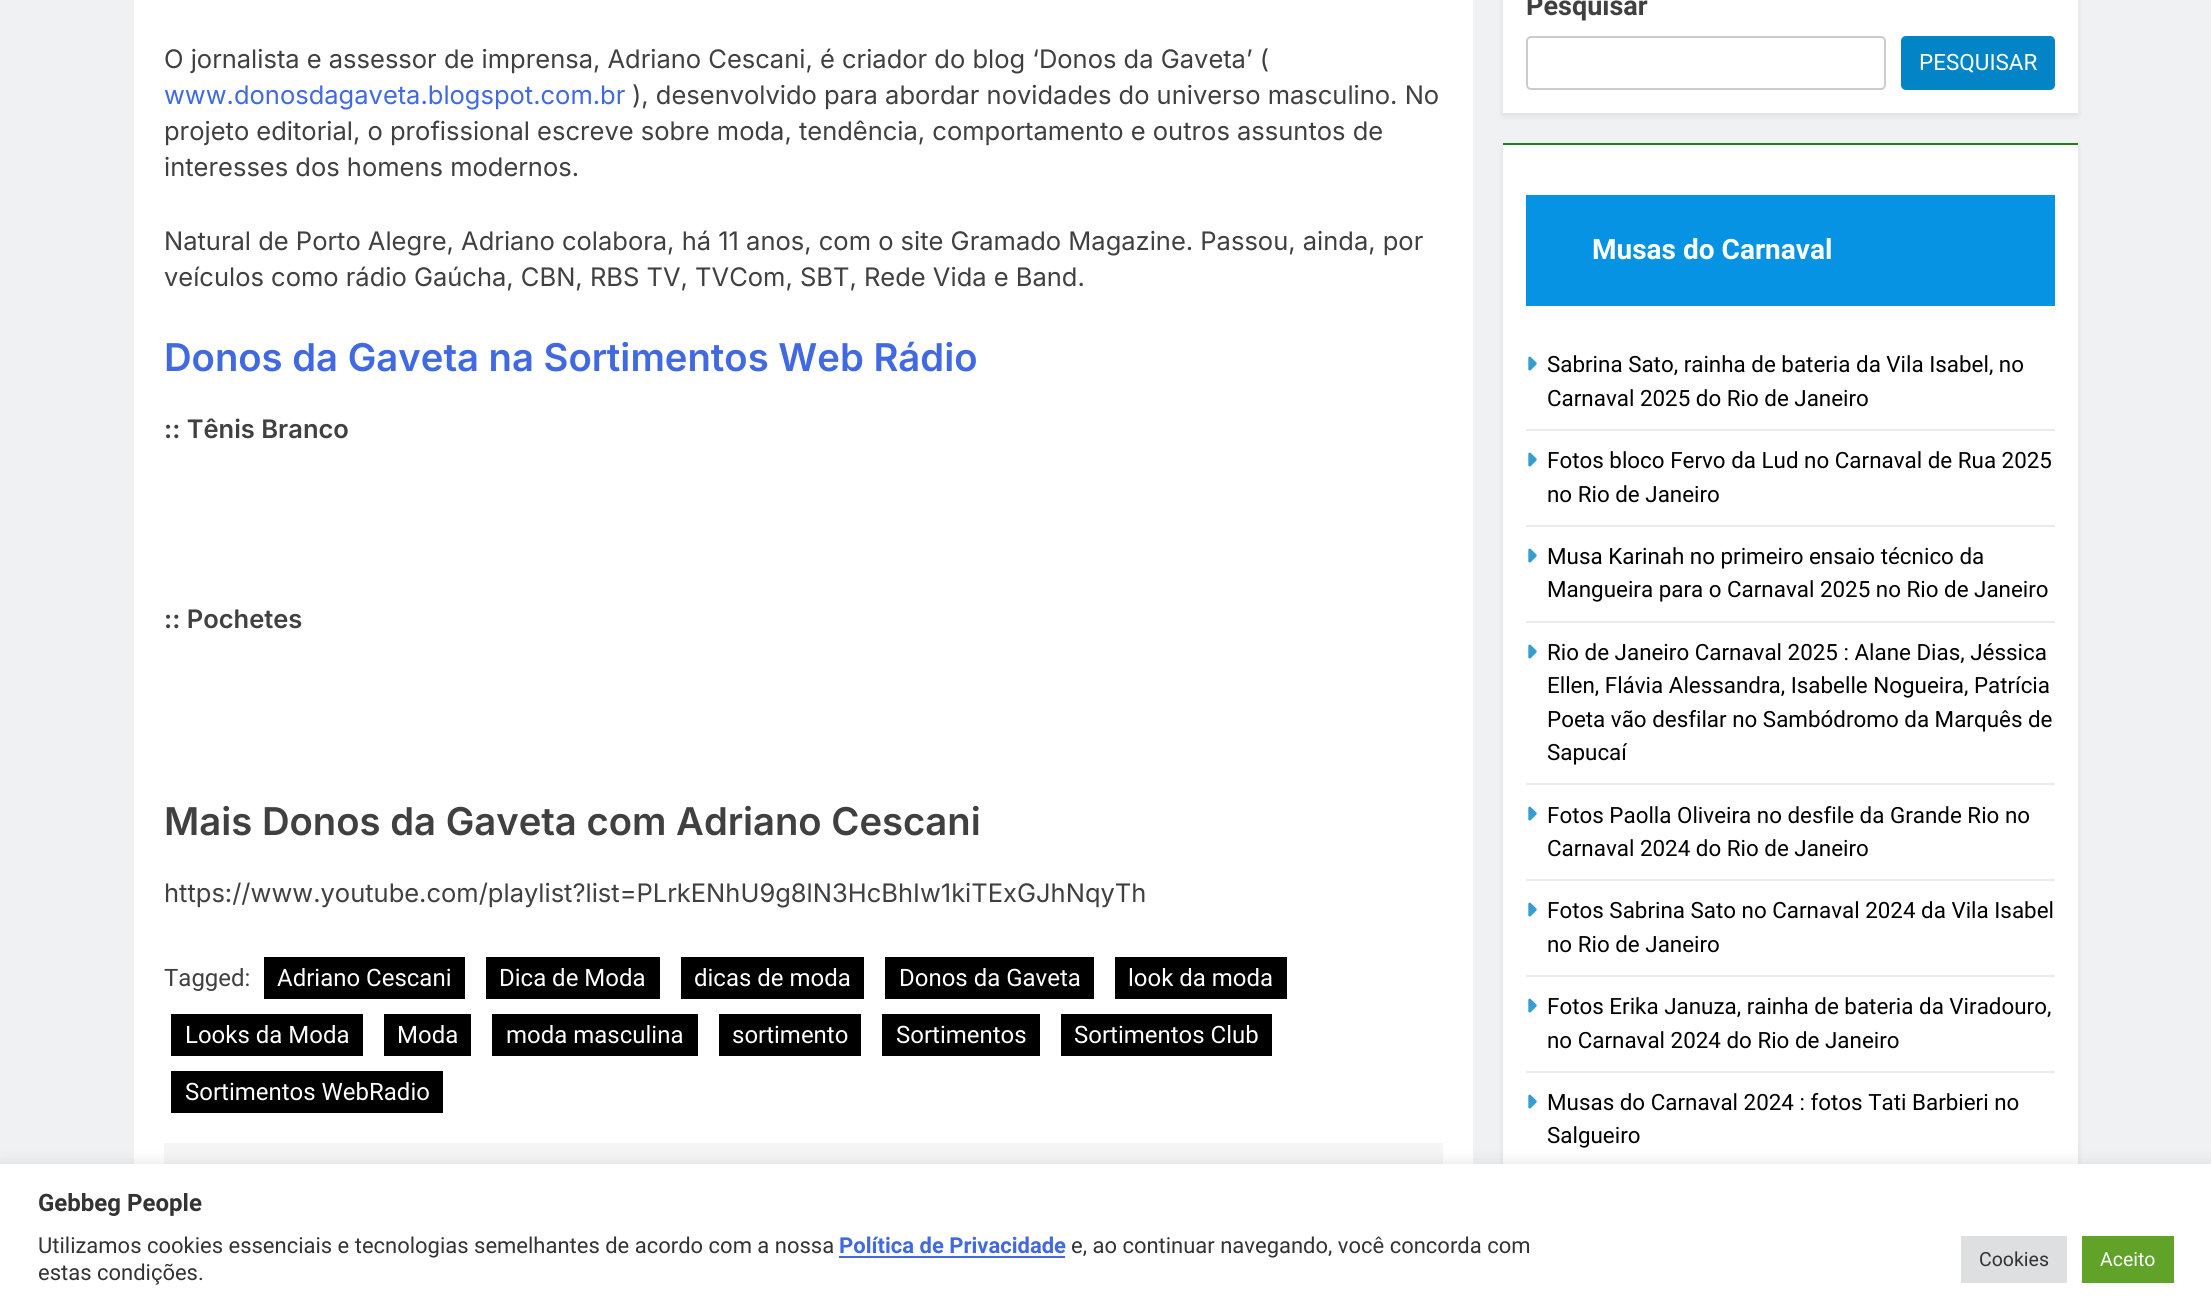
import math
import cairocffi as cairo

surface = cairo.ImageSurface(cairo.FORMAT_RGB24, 2211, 1311)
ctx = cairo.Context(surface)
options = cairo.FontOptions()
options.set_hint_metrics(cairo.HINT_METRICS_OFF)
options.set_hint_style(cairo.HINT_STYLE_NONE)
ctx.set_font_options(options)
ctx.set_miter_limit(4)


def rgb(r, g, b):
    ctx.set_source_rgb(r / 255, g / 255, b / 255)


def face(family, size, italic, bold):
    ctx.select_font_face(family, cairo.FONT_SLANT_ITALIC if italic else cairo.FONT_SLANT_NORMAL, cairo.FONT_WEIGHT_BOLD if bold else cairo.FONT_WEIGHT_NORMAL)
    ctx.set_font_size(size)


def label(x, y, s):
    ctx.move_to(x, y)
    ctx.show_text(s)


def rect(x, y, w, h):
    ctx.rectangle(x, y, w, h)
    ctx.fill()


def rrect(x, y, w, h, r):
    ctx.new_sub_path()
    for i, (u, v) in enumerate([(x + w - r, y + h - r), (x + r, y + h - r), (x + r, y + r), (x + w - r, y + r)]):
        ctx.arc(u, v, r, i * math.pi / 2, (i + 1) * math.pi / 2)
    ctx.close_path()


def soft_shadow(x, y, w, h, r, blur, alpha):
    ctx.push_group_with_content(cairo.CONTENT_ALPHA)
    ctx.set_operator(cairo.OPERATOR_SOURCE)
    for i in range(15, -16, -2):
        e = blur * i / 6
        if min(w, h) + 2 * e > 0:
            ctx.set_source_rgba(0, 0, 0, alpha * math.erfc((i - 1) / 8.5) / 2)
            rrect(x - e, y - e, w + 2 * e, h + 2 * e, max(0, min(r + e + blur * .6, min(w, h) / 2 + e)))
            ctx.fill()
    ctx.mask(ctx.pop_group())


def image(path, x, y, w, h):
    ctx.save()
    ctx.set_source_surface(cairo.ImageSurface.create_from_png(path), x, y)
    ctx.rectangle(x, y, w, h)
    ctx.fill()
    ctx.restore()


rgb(240, 241, 242)
ctx.paint()
rgb(255, 255, 255)
rect(134, 0, 1339, 1164)
face('Inter', 25.5, 0, 0)
rgb(64, 64, 64)
label(164, 68, 'O jornalista e assessor de imprensa, Adriano Cescani, é criador do blog ‘Donos da Gaveta’ (')
rgb(65, 105, 225)
label(164, 104, 'www.donosdagaveta.blogspot.com.br')
rgb(64, 64, 64)
label(632, 104, '), desenvolvido para abordar novidades do universo masculino. No')
label(164, 140, 'projeto editorial, o profissional escreve sobre moda, tendência, comportamento e outros assuntos de')
label(164, 176, 'interesses dos homens modernos.')
label(164, 250, 'Natural de Porto Alegre, Adriano colabora, há 11 anos, com o site Gramado Magazine. Passou, ainda, por')
label(164, 286, 'veículos como rádio Gaúcha, CBN, RBS TV, TVCom, SBT, Rede Vida e Band.')
face('Inter SemiBold', 38.25, 0, 0)
rgb(65, 105, 225)
label(164, 371, 'Donos da Gaveta na Sortimentos Web Rádio')
face('Inter SemiBold', 25.5, 0, 0)
rgb(64, 64, 64)
label(164, 438, ':: Tênis Branco')
label(164, 628, ':: Pochetes')
face('Inter SemiBold', 38.25, 0, 0)
label(164, 835, 'Mais Donos da Gaveta com Adriano Cescani')
face('Inter', 25.5, 0, 0)
label(164, 902, 'https://www.youtube.com/playlist?list=PLrkENhU9g8lN3HcBhIw1kiTExGJhNqyTh')
face('Roboto', 24, 0, 0)
label(164, 986, 'Tagged:')
rgb(0, 0, 0)
rect(264, 957, 201, 42)
rgb(255, 255, 255)
label(277, 986, 'Adriano Cescani')
rgb(0, 0, 0)
rect(486, 957, 174, 42)
rgb(255, 255, 255)
label(499, 986, 'Dica de Moda')
rgb(0, 0, 0)
rect(681, 957, 183, 42)
rgb(255, 255, 255)
label(694, 986, 'dicas de moda')
rgb(0, 0, 0)
rect(885, 957, 209, 42)
rgb(255, 255, 255)
label(899, 986, 'Donos da Gaveta')
rgb(0, 0, 0)
rect(1115, 957, 172, 42)
rgb(255, 255, 255)
label(1128, 986, 'look da moda')
rgb(0, 0, 0)
rect(171, 1014, 192, 42)
rgb(255, 255, 255)
label(185, 1043, 'Looks da Moda')
rgb(0, 0, 0)
rect(384, 1014, 87, 42)
rgb(255, 255, 255)
label(397, 1043, 'Moda')
rgb(0, 0, 0)
rect(492, 1014, 206, 42)
rgb(255, 255, 255)
label(506, 1043, 'moda masculina')
rgb(0, 0, 0)
rect(719, 1014, 142, 42)
rgb(255, 255, 255)
label(732, 1043, 'sortimento')
rgb(0, 0, 0)
rect(882, 1014, 158, 42)
rgb(255, 255, 255)
label(896, 1043, 'Sortimentos')
rgb(0, 0, 0)
rect(1061, 1014, 211, 42)
rgb(255, 255, 255)
label(1074, 1043, 'Sortimentos Club')
rgb(0, 0, 0)
rect(171, 1071, 272, 42)
rgb(255, 255, 255)
label(185, 1100, 'Sortimentos WebRadio')
rgb(245, 245, 245)
rect(164, 1143, 1279, 21)
rgb(0, 0, 0)
soft_shadow(1503, -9, 575, 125, 0, 3, 0.08)
rgb(255, 255, 255)
rect(1503, 0, 575, 113)
face('Roboto', 27, 0, 1)
rgb(64, 64, 64)
label(1526, 15, 'Pesquisar')
rrect(1527, 37, 358, 52, 4)
rgb(204, 204, 204)
ctx.stroke()
rgb(2, 132, 199)
rrect(1901, 36, 154, 54, 5)
ctx.fill()
face('Roboto', 22.5, 0, 0)
rgb(255, 255, 255)
label(1919, 70, 'PESQUISAR')
rgb(0, 0, 0)
soft_shadow(1503, 147, 575, 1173, 0, 3, 0.08)
rgb(255, 255, 255)
rect(1503, 145, 575, 1019)
rgb(27, 132, 21)
rect(1503, 143, 575, 2)
rgb(6, 147, 227)
rect(1526, 195, 529, 111)
face('Roboto', 28, 0, 1)
rgb(255, 255, 255)
label(1592, 259, 'Musas do Carnaval')
rgb(234, 234, 234)
rect(1526, 429, 529, 2)
image('image0.png', 1528, 356, 9, 15)
face('Roboto', 22.4, 0, 0)
rgb(0, 0, 0)
label(1547, 372, 'Sabrina Sato, rainha de bateria da Vila Isabel, no')
label(1547, 406, 'Carnaval 2025 do Rio de Janeiro')
rgb(234, 234, 234)
rect(1526, 525, 529, 2)
image('image0.png', 1528, 452, 9, 15)
rgb(0, 0, 0)
label(1547, 468, 'Fotos bloco Fervo da Lud no Carnaval de Rua 2025')
label(1547, 502, 'no Rio de Janeiro')
rgb(234, 234, 234)
rect(1526, 621, 529, 2)
image('image0.png', 1528, 548, 9, 15)
rgb(0, 0, 0)
label(1547, 564, 'Musa Karinah no primeiro ensaio técnico da')
label(1547, 597, 'Mangueira para o Carnaval 2025 no Rio de Janeiro')
rgb(234, 234, 234)
rect(1526, 783, 529, 2)
image('image0.png', 1528, 644, 9, 15)
rgb(0, 0, 0)
label(1547, 660, 'Rio de Janeiro Carnaval 2025 : Alane Dias, Jéssica')
label(1547, 693, 'Ellen, Flávia Alessandra, Isabelle Nogueira, Patrícia')
label(1547, 727, 'Poeta vão desfilar no Sambódromo da Marquês de')
label(1547, 760, 'Sapucaí')
rgb(234, 234, 234)
rect(1526, 879, 529, 2)
image('image0.png', 1528, 806, 9, 15)
rgb(0, 0, 0)
label(1547, 823, 'Fotos Paolla Oliveira no desfile da Grande Rio no')
label(1547, 856, 'Carnaval 2024 do Rio de Janeiro')
rgb(234, 234, 234)
rect(1526, 975, 529, 2)
image('image0.png', 1528, 902, 9, 15)
rgb(0, 0, 0)
label(1547, 918, 'Fotos Sabrina Sato no Carnaval 2024 da Vila Isabel')
label(1547, 952, 'no Rio de Janeiro')
rgb(234, 234, 234)
rect(1526, 1071, 529, 2)
image('image0.png', 1528, 998, 9, 15)
rgb(0, 0, 0)
label(1547, 1014, 'Fotos Erika Januza, rainha de bateria da Viradouro,')
label(1547, 1048, 'no Carnaval 2024 do Rio de Janeiro')
image('image0.png', 1528, 1094, 9, 15)
label(1547, 1110, 'Musas do Carnaval 2024 : fotos Tati Barbieri no')
label(1547, 1143, 'Salgueiro')
rgb(172, 171, 171)
soft_shadow(0, 1163, 2211, 147, 0, 7.5, 0.3)
rgb(255, 255, 255)
rect(0, 1164, 2211, 147)
face('Roboto', 24, 0, 1)
rgb(51, 51, 51)
label(38, 1211, 'Gebbeg People')
face('Roboto', 22, 0, 0)
label(38, 1253, 'Utilizamos cookies essenciais e tecnologias semelhantes de acordo com a nossa')
face('Roboto', 22, 0, 1)
rgb(65, 105, 225)
label(839, 1253, 'Política de Privacidade')
rect(839, 1256, 226, 2)
face('Roboto', 22, 0, 0)
rgb(51, 51, 51)
label(1071, 1253, 'e, ao continuar navegando, você concorda com')
label(38, 1280, 'estas condições.')
rgb(222, 223, 224)
rect(1961, 1236, 106, 47)
face('Roboto', 19.5, 0, 0)
rgb(51, 51, 51)
label(1979, 1266, 'Cookies')
rgb(97, 162, 41)
rect(2082, 1236, 92, 47)
rgb(255, 255, 255)
label(2100, 1266, 'Aceito')
surface.write_to_png('render.png')
